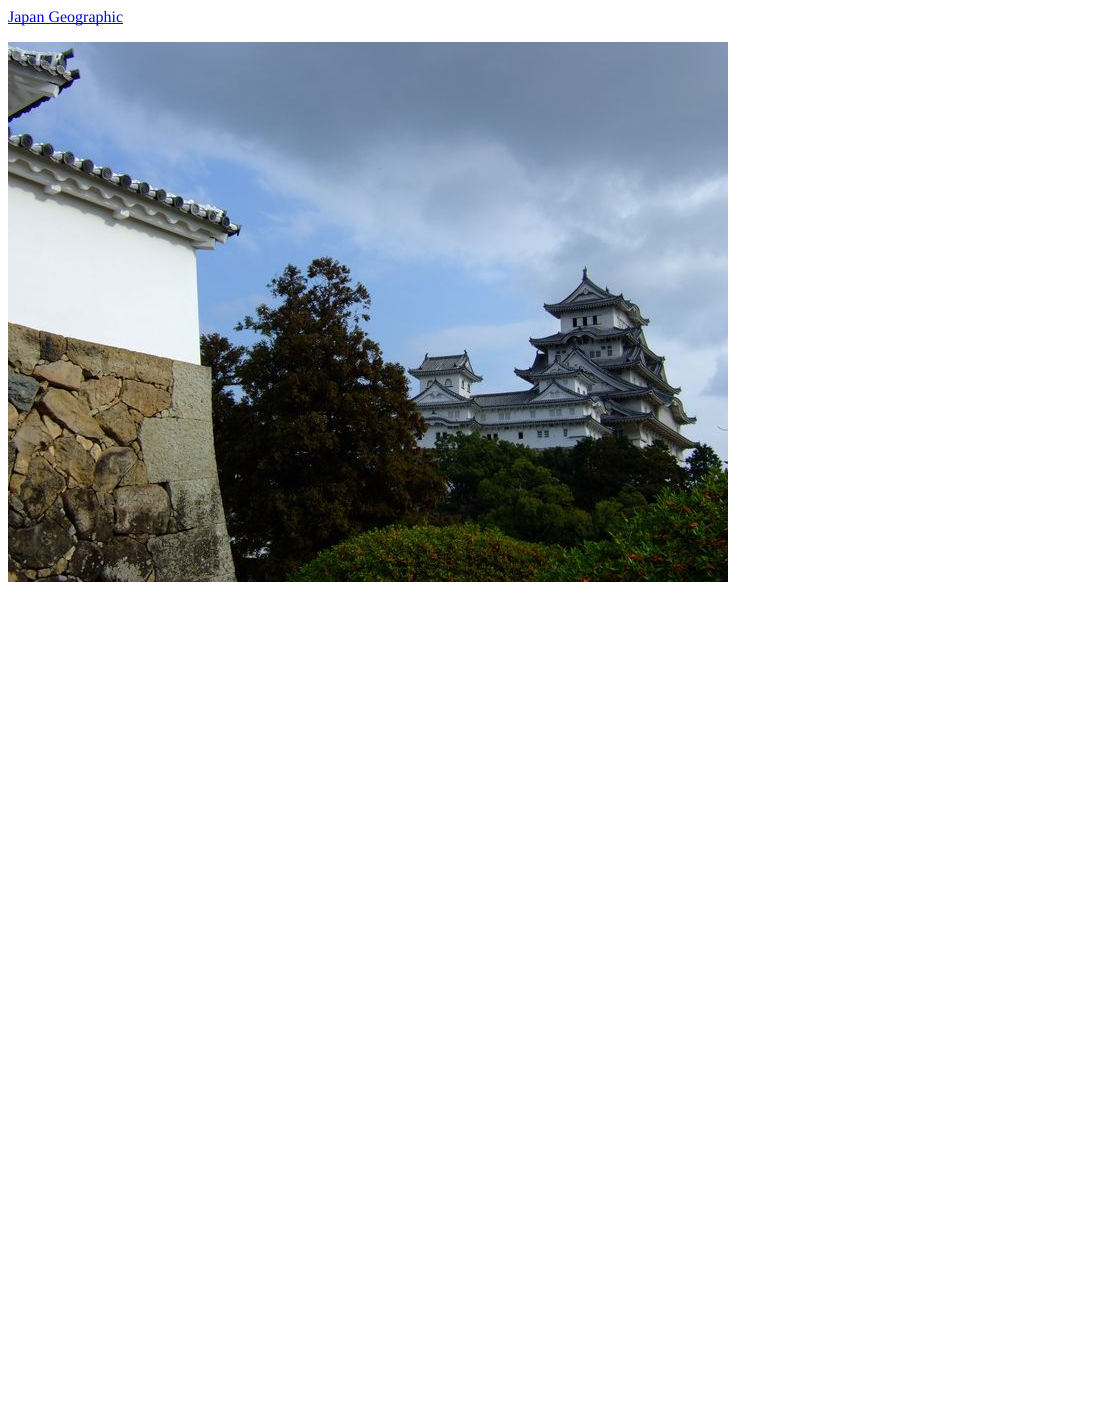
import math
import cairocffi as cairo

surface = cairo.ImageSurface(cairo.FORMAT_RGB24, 1104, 1413)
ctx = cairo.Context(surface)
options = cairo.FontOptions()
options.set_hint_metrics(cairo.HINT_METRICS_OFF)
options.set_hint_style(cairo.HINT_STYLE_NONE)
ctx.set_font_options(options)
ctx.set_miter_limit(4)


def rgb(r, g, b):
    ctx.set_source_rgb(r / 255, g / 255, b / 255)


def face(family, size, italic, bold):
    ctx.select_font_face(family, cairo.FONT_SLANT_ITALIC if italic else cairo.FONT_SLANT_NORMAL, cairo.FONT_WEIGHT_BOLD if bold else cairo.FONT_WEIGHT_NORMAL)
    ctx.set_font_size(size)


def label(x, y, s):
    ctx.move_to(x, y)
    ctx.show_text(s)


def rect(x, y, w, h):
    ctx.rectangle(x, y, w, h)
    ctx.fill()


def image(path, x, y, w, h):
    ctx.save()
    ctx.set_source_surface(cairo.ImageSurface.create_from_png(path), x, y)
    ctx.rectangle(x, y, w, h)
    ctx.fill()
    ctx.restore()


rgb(255, 255, 255)
ctx.paint()
rgb(0, 0, 238)
rect(8, 23, 115, 1)
face('Liberation Serif', 16, 0, 0)
label(8, 22, 'Japan Geographic')
image('image0.png', 8, 42, 720, 540)
surface.write_to_png('render.png')
